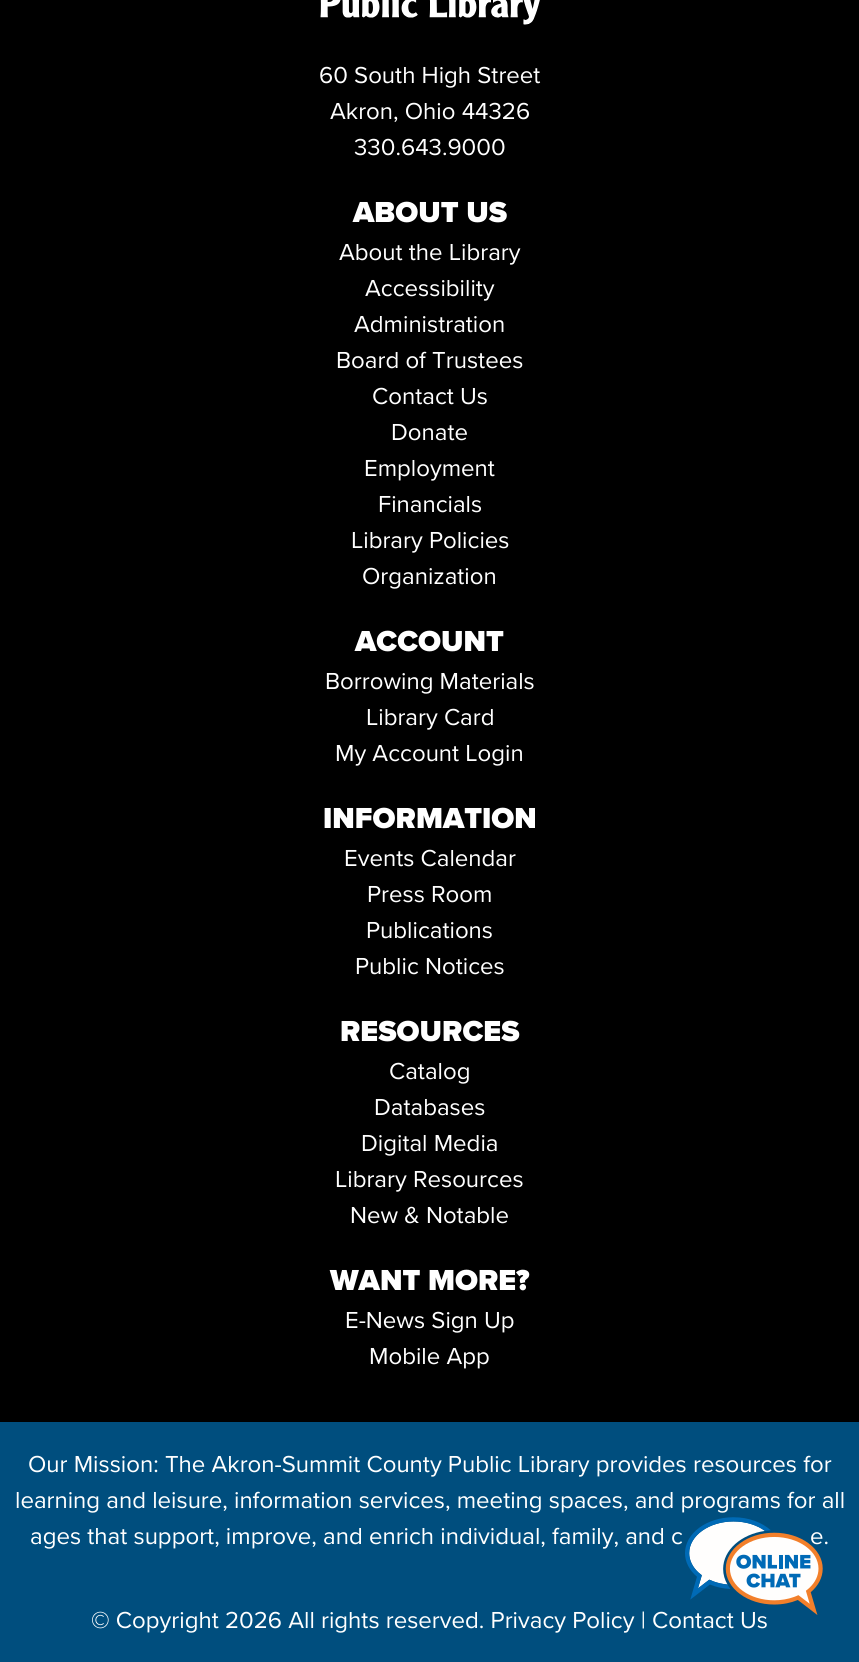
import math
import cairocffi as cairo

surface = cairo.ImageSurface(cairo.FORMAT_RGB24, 859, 1662)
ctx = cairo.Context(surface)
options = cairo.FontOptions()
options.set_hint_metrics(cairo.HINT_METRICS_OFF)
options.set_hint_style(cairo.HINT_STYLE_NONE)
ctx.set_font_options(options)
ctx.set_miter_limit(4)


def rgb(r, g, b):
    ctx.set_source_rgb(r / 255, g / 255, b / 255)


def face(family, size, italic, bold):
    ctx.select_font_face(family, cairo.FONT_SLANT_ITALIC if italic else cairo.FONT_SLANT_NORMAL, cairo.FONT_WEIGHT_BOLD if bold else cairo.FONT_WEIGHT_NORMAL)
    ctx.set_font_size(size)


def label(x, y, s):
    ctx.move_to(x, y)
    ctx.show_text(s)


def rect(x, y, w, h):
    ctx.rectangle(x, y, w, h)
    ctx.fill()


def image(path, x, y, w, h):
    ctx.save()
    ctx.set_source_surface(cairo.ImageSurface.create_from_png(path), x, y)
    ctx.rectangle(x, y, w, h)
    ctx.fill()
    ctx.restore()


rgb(0, 0, 0)
ctx.paint()
image('image0.png', 320, 0, 220, 25)
face('Proxima Nova', 24, 0, 0)
rgb(255, 255, 255)
label(319, 83, '60 South High Street')
label(330, 119, 'Akron, Ohio 44326')
label(354, 155, '330.643.9000')
face('Proxima Nova Black', 30, 0, 0)
label(353, 222, 'ABOUT US')
face('Proxima Nova', 24, 0, 0)
label(339, 260, 'About the Library')
label(365, 296, 'Accessibility')
label(354, 332, 'Administration')
label(336, 368, 'Board of Trustees')
label(372, 404, 'Contact Us')
label(391, 440, 'Donate')
label(364, 476, 'Employment')
label(378, 512, 'Financials')
label(351, 548, 'Library Policies')
label(362, 584, 'Organization')
face('Proxima Nova Black', 30, 0, 0)
label(355, 651, 'ACCOUNT')
face('Proxima Nova', 24, 0, 0)
label(325, 689, 'Borrowing Materials')
label(366, 725, 'Library Card')
label(335, 761, 'My Account Login')
face('Proxima Nova Black', 30, 0, 0)
label(323, 828, 'INFORMATION')
face('Proxima Nova', 24, 0, 0)
label(344, 866, 'Events Calendar')
label(367, 902, 'Press Room')
label(366, 938, 'Publications')
label(355, 974, 'Public Notices')
face('Proxima Nova Black', 30, 0, 0)
label(340, 1041, 'RESOURCES')
face('Proxima Nova', 24, 0, 0)
label(389, 1079, 'Catalog')
label(374, 1115, 'Databases')
label(361, 1151, 'Digital Media')
label(335, 1187, 'Library Resources')
label(350, 1223, 'New & Notable')
face('Proxima Nova Black', 30, 0, 0)
label(330, 1290, 'WANT MORE?')
face('Proxima Nova', 24, 0, 0)
label(345, 1328, 'E-News Sign Up')
label(369, 1364, 'Mobile App')
rgb(0, 78, 126)
rect(0, 1422, 859, 240)
rgb(255, 255, 255)
label(810, 1544, 'e.')
label(91, 1628, '© Copyright 2026 All rights reserved. Privacy Policy | Contact Us')
image('image1.png', 685, 1517, 138, 98)
label(28, 1472, 'Our Mission: The Akron-Summit County Public Library provides resources for')
label(15, 1508, 'learning and leisure, information services, meeting spaces, and programs for all')
label(30, 1544, 'ages that support, improve, and enrich individual, family, and c')
surface.write_to_png('render.png')
